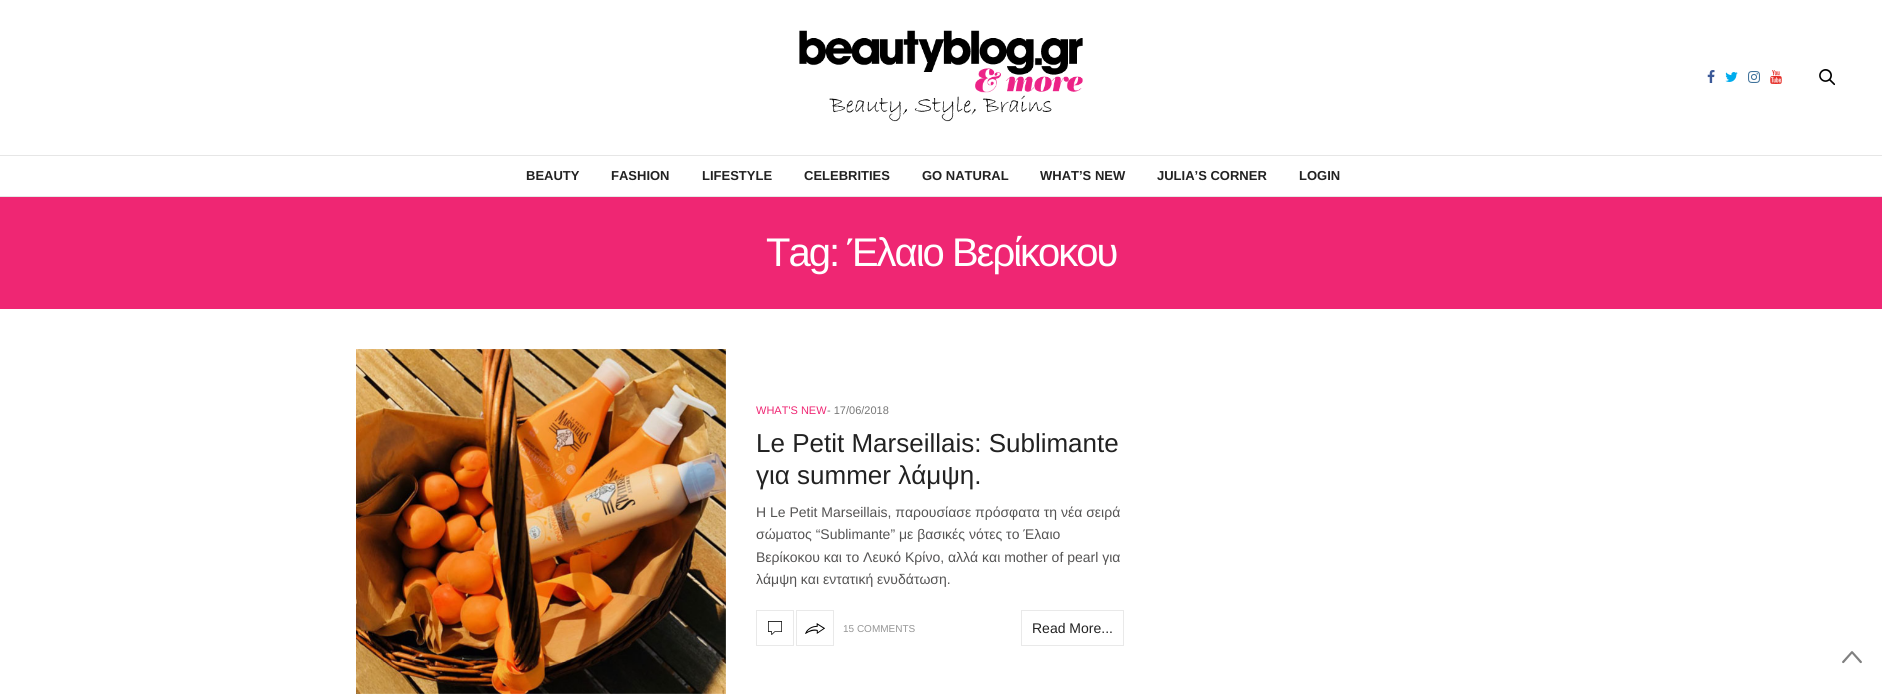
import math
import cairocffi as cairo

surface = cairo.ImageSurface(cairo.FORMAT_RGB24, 1882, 694)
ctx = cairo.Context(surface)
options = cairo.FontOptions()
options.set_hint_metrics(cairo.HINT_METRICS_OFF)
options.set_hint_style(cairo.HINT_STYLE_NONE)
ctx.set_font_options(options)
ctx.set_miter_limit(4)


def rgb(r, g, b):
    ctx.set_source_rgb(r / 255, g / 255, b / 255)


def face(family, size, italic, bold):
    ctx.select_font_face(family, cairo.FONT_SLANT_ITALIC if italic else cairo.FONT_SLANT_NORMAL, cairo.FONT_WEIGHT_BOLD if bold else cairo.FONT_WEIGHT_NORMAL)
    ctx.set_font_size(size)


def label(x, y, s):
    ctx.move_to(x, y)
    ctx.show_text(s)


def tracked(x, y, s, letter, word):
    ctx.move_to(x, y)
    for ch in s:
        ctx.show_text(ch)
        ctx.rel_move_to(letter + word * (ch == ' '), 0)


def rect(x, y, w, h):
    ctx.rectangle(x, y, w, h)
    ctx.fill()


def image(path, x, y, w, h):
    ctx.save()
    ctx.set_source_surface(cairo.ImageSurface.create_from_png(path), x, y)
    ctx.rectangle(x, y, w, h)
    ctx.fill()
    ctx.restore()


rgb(255, 255, 255)
ctx.paint()
rgb(230, 230, 230)
rect(0, 155, 1882, 1)
image('image0.png', 799, 30, 284, 92)
image('image1.png', 1707, 70, 8, 13)
image('image2.png', 1725, 72, 13, 10)
image('image3.png', 1748, 71, 12, 12)
image('image4.png', 1770, 70, 12, 14)
image('image5.png', 1819, 69, 16, 17)
rect(0, 196, 1882, 1)
face('Liberation Sans', 13, 0, 1)
rgb(34, 34, 34)
label(526, 180, 'BEAUTY')
label(611, 180, 'FASHION')
label(702, 180, 'LIFESTYLE')
label(804, 180, 'CELEBRITIES')
label(922, 180, 'GO NATURAL')
label(1040, 180, 'WHAT’S NEW')
label(1157, 180, 'JULIA’S CORNER')
label(1299, 180, 'LOGIN')
rgb(239, 38, 115)
rect(0, 197, 1882, 112)
face('Liberation Sans', 40, 0, 0)
rgb(255, 255, 255)
tracked(766, 266, 'Tag: Έλαιο Βερίκοκου', -2, 0)
image('image6.png', 356, 349, 370, 345)
face('Liberation Sans', 11, 0, 0)
rgb(239, 38, 115)
label(756, 414, 'WHAT\'S NEW')
rgb(118, 118, 118)
label(827, 414, '- 17/06/2018')
face('Liberation Sans', 26, 0, 0)
rgb(34, 34, 34)
label(756, 452, 'Le Petit Marseillais: Sublimante')
label(756, 484, 'για summer λάμψη.')
face('Liberation Sans', 14, 0, 0)
rgb(84, 83, 83)
label(756, 517, 'Η Le Petit Marseillais, παρουσίασε πρόσφατα τη νέα σειρά')
label(756, 539, 'σώματος “Sublimante” με βασικές νότες το Έλαιο')
label(756, 562, 'Βερίκοκου και το Λευκό Κρίνο, αλλά και mother of pearl για')
label(756, 584, 'λάμψη και εντατική ενυδάτωση.')
ctx.rectangle(756.5, 610.5, 37, 35)
rgb(233, 233, 233)
ctx.set_line_width(1)
ctx.stroke()
image('image7.png', 768, 621, 14, 14)
ctx.rectangle(796.5, 610.5, 37, 35)
ctx.stroke()
image('image8.png', 805, 623, 20, 11)
face('Liberation Sans', 10, 0, 0)
rgb(149, 149, 149)
label(843, 632, '15 COMMENTS')
ctx.rectangle(1021.5, 610.5, 102, 35)
rgb(233, 233, 233)
ctx.stroke()
face('Liberation Sans', 14, 0, 0)
rgb(34, 34, 34)
label(1032, 633, 'Read More...')
image('image9.png', 1842, 651, 20, 13)
surface.write_to_png('render.png')
